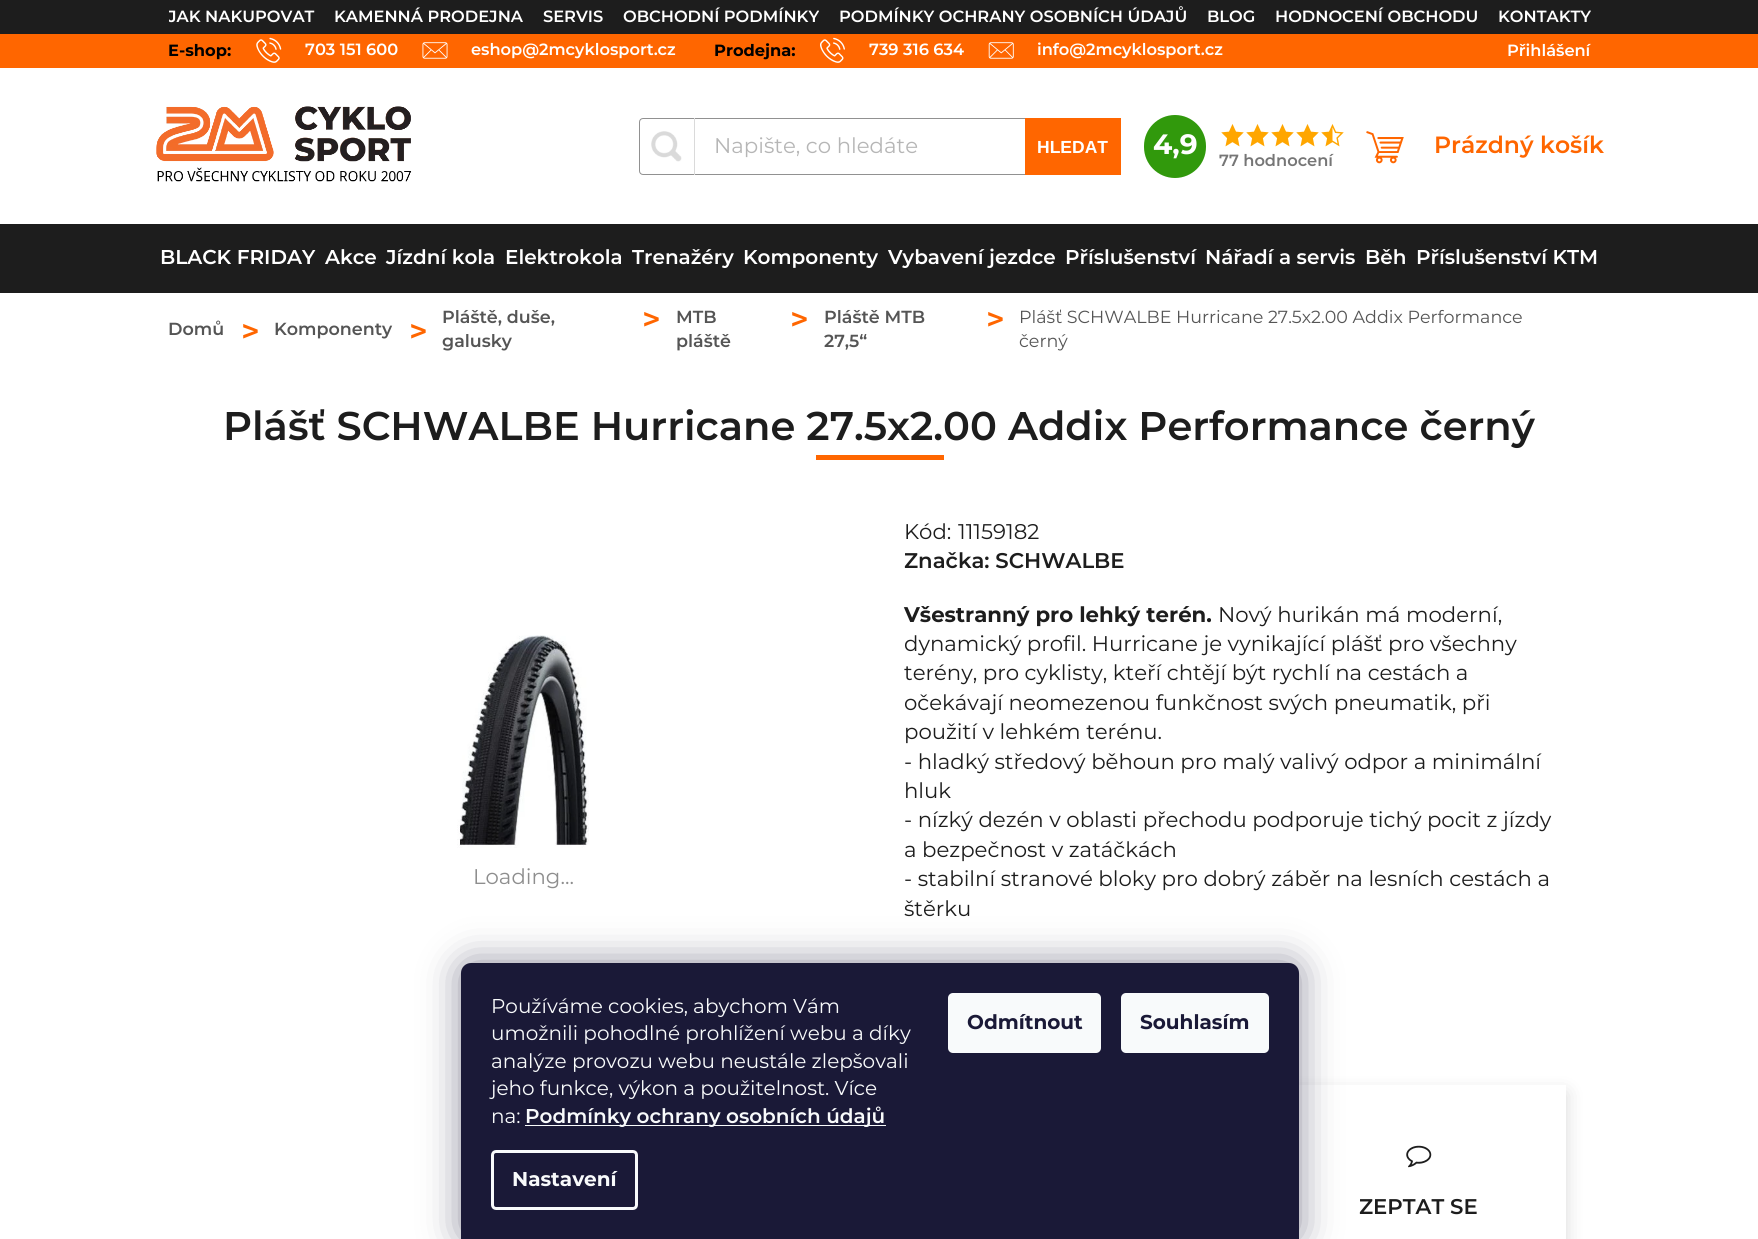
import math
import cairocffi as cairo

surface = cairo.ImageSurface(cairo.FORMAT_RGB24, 1758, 1239)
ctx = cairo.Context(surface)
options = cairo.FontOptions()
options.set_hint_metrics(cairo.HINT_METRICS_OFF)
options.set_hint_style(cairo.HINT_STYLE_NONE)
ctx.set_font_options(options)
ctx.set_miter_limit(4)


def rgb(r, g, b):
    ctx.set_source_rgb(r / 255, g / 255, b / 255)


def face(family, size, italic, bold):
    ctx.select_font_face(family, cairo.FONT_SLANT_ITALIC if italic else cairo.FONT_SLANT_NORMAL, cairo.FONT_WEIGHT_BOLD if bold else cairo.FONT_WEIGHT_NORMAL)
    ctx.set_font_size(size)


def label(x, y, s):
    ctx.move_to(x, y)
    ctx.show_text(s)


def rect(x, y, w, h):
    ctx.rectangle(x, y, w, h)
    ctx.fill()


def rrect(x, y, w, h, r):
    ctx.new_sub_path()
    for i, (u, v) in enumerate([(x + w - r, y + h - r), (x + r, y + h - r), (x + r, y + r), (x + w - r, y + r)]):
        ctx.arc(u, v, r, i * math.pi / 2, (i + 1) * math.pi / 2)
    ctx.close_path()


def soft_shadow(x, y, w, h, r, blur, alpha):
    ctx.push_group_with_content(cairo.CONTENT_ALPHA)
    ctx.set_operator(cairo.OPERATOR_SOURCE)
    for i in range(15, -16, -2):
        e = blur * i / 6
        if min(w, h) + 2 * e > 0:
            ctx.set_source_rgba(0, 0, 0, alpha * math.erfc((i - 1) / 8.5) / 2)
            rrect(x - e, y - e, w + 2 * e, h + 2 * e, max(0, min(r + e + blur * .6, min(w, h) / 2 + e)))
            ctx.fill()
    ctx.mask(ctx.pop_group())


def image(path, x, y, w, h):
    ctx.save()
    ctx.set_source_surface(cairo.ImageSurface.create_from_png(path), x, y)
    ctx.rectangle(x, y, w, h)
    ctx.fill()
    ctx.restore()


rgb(29, 29, 29)
ctx.paint()
ctx.save()
ctx.rectangle(169, 1, 1422, 32)
ctx.clip()
face('Montserrat SemiBold', 16.25, 0, 0)
rgb(255, 255, 255)
label(168, 22, 'JAK NAKUPOVAT')
ctx.restore()
face('Montserrat SemiBold', 16.25, 0, 0)
rgb(255, 255, 255)
label(334, 22, 'KAMENNÁ PRODEJNA')
label(543, 22, 'SERVIS')
label(623, 22, 'OBCHODNÍ PODMÍNKY')
label(839, 22, 'PODMÍNKY OCHRANY OSOBNÍCH ÚDAJŮ')
label(1207, 22, 'BLOG')
label(1275, 22, 'HODNOCENÍ OBCHODU')
label(1498, 22, 'KONTAKTY')
rgb(255, 102, 0)
rect(0, 34, 1758, 34)
face('Montserrat', 16.25, 0, 1)
rgb(0, 0, 0)
label(168, 56, 'E-shop:')
image('image0.png', 256, 37, 26, 26)
face('Montserrat SemiBold', 16.25, 0, 0)
rgb(255, 255, 255)
label(305, 55, '703 151 600')
image('image1.png', 422, 42, 26, 17)
label(471, 55, 'eshop@2mcyklosport.cz')
face('Montserrat', 16.25, 0, 1)
rgb(0, 0, 0)
label(714, 56, 'Prodejna:')
image('image2.png', 820, 37, 25, 26)
face('Montserrat SemiBold', 16.25, 0, 0)
rgb(255, 255, 255)
label(869, 55, '739 316 634')
image('image3.png', 988, 42, 26, 17)
label(1037, 55, 'info@2mcyklosport.cz')
label(1507, 56, 'Přihlášení')
rect(0, 68, 1758, 156)
image('image4.png', 156, 106, 256, 76)
rrect(639.5, 118.5, 481, 56, 3.5)
rgb(145, 145, 145)
ctx.set_line_width(1)
ctx.stroke()
image('image5.png', 651, 131, 31, 31)
rgb(218, 218, 218)
rect(694, 118, 1, 57)
face('Montserrat', 21.25, 0, 0)
rgb(182, 182, 182)
label(714, 153, 'Napište, co hledáte')
rgb(255, 102, 0)
rect(1025, 118, 96, 57)
face('Liberation Sans', 17.5, 0, 1)
rgb(255, 255, 255)
label(1037, 153, 'HLEDAT')
rgb(49, 153, 12)
rrect(1144, 115, 62, 63, 31)
ctx.fill()
face('Montserrat', 28, 0, 1)
rgb(255, 255, 255)
label(1153, 154, '4,9')
image('image6.png', 1221, 124, 23, 23)
image('image6.png', 1246, 124, 23, 23)
image('image6.png', 1271, 124, 23, 23)
image('image6.png', 1296, 124, 23, 23)
image('image7.png', 1321, 124, 23, 23)
face('Montserrat SemiBold', 16.25, 0, 0)
rgb(118, 118, 118)
label(1219, 166, '77 hodnocení')
image('image8.png', 1366, 131, 38, 33)
face('Montserrat SemiBold', 23.5, 0, 0)
rgb(255, 102, 0)
label(1434, 153, 'Prázdný košík')
face('Montserrat SemiBold', 20, 0, 0)
rgb(255, 255, 255)
label(160, 264, 'BLACK FRIDAY')
label(325, 264, 'Akce')
label(386, 264, 'Jízdní kola')
label(505, 264, 'Elektrokola')
label(632, 264, 'Trenažéry')
label(743, 264, 'Komponenty')
label(888, 264, 'Vybavení jezdce')
label(1065, 264, 'Příslušenství')
label(1205, 264, 'Nářadí a servis')
label(1365, 264, 'Běh')
label(1416, 264, 'Příslušenství KTM')
rect(0, 293, 1758, 946)
face('Montserrat SemiBold', 17.5, 0, 0)
rgb(85, 85, 85)
label(168, 335, 'Domů')
face('DejaVu Sans Mono', 28, 0, 1)
rgb(255, 102, 0)
label(242, 340, '>')
face('Montserrat SemiBold', 17.5, 0, 0)
rgb(85, 85, 85)
label(274, 335, 'Komponenty')
face('DejaVu Sans Mono', 28, 0, 1)
rgb(255, 102, 0)
label(410, 340, '>')
face('Montserrat SemiBold', 17.5, 0, 0)
rgb(85, 85, 85)
label(442, 323, 'Pláště, duše,')
face('DejaVu Sans Mono', 28, 0, 1)
rgb(255, 102, 0)
label(643, 328, '>')
face('Montserrat SemiBold', 17.5, 0, 0)
rgb(85, 85, 85)
label(442, 347, 'galusky')
label(676, 323, 'MTB')
face('DejaVu Sans Mono', 28, 0, 1)
rgb(255, 102, 0)
label(791, 328, '>')
face('Montserrat SemiBold', 17.5, 0, 0)
rgb(85, 85, 85)
label(676, 347, 'pláště')
label(824, 323, 'Pláště MTB')
face('DejaVu Sans Mono', 28, 0, 1)
rgb(255, 102, 0)
label(987, 328, '>')
face('Montserrat SemiBold', 17.5, 0, 0)
rgb(85, 85, 85)
label(824, 347, '27,5“')
face('Montserrat', 17.5, 0, 0)
label(1019, 323, 'Plášť SCHWALBE Hurricane 27.5x2.00 Addix Performance')
label(1019, 347, 'černý')
face('Montserrat SemiBold', 40, 0, 0)
rgb(29, 29, 29)
label(223, 440, 'Plášť SCHWALBE Hurricane 27.5x2.00 Addix Performance černý')
rgb(255, 102, 0)
rect(816, 455, 128, 5)
image('image9.png', 457, 635, 132, 213)
face('Montserrat', 21.25, 0, 0)
rgb(142, 142, 142)
label(473, 884, 'Loading...')
rgb(29, 29, 29)
label(904, 539, 'Kód:')
label(958, 539, '11159182')
face('Montserrat SemiBold', 21.25, 0, 0)
label(904, 568, 'Značka: SCHWALBE')
face('Montserrat', 21.25, 0, 1)
label(904, 622, 'Všestranný pro lehký terén.')
face('Montserrat', 21.25, 0, 0)
label(1218, 622, 'Nový hurikán má moderní,')
label(904, 651, 'dynamický profil. Hurricane je vynikající plášť pro všechny')
label(904, 680, 'terény, pro cyklisty, kteří chtějí být rychlí na cestách a')
label(904, 710, 'očekávají neomezenou funkčnost svých pneumatik, při')
label(904, 739, 'použití v lehkém terénu.')
label(904, 769, '- hladký středový běhoun pro malý valivý odpor a minimální')
label(904, 798, 'hluk')
label(904, 827, '- nízký dezén v oblasti přechodu podporuje tichý pocit z jízdy')
label(904, 857, 'a bezpečnost v zatáčkách')
label(904, 886, '- stabilní stranové bloky pro dobrý záběr na lesních cestách a')
label(904, 916, 'štěrku')
ctx.save()
ctx.set_fill_rule(cairo.FILL_RULE_EVEN_ODD)
ctx.new_path()
ctx.move_to(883, 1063)
ctx.line_to(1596, 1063)
ctx.line_to(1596, 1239)
ctx.line_to(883, 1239)
ctx.close_path()
ctx.move_to(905, 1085)
ctx.line_to(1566, 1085)
ctx.line_to(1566, 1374)
ctx.line_to(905, 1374)
ctx.close_path()
ctx.clip()
rgb(0, 0, 0)
soft_shadow(913, 1093, 653, 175, 0, 9.5, 0.15)
ctx.restore()
image('image10.png', 1406, 1145, 26, 23)
face('Montserrat SemiBold', 21.25, 0, 0)
label(1359, 1214, 'ZEPTAT SE')
rgb(27, 25, 57)
soft_shadow(461, 963, 838, 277, 10, 19, 0.5)
rgb(26, 25, 55)
ctx.new_path()
ctx.move_to(471, 963)
ctx.line_to(1289, 963)
ctx.curve_to(1294.5, 963, 1299, 967.5, 1299, 973)
ctx.line_to(1299, 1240)
ctx.line_to(461, 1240)
ctx.line_to(461, 973)
ctx.curve_to(461, 967.5, 465.5, 963, 471, 963)
ctx.close_path()
ctx.fill()
face('Montserrat', 20, 0, 0)
rgb(248, 250, 251)
label(491, 1013, 'Používáme cookies, abychom Vám')
label(491, 1040, 'umožnili pohodlné prohlížení webu a díky')
label(491, 1068, 'analýze provozu webu neustále zlepšovali')
label(491, 1095, 'jeho funkce, výkon a použitelnost. Více')
label(491, 1123, 'na:')
rect(525, 1125, 361, 1)
face('Montserrat SemiBold', 20, 0, 0)
label(525, 1123, 'Podmínky ochrany osobních údajů')
rrect(492.5, 1151.5, 144, 57, 3.5)
ctx.set_line_width(3)
ctx.stroke()
face('Montserrat', 20, 0, 1)
label(512, 1186, 'Nastavení')
rrect(948, 993, 153, 60, 5)
ctx.fill()
rgb(26, 25, 55)
label(967, 1029, 'Odmítnout')
rgb(248, 250, 251)
rrect(1121, 993, 148, 60, 5)
ctx.fill()
rgb(26, 25, 55)
label(1140, 1029, 'Souhlasím')
surface.write_to_png('render.png')
